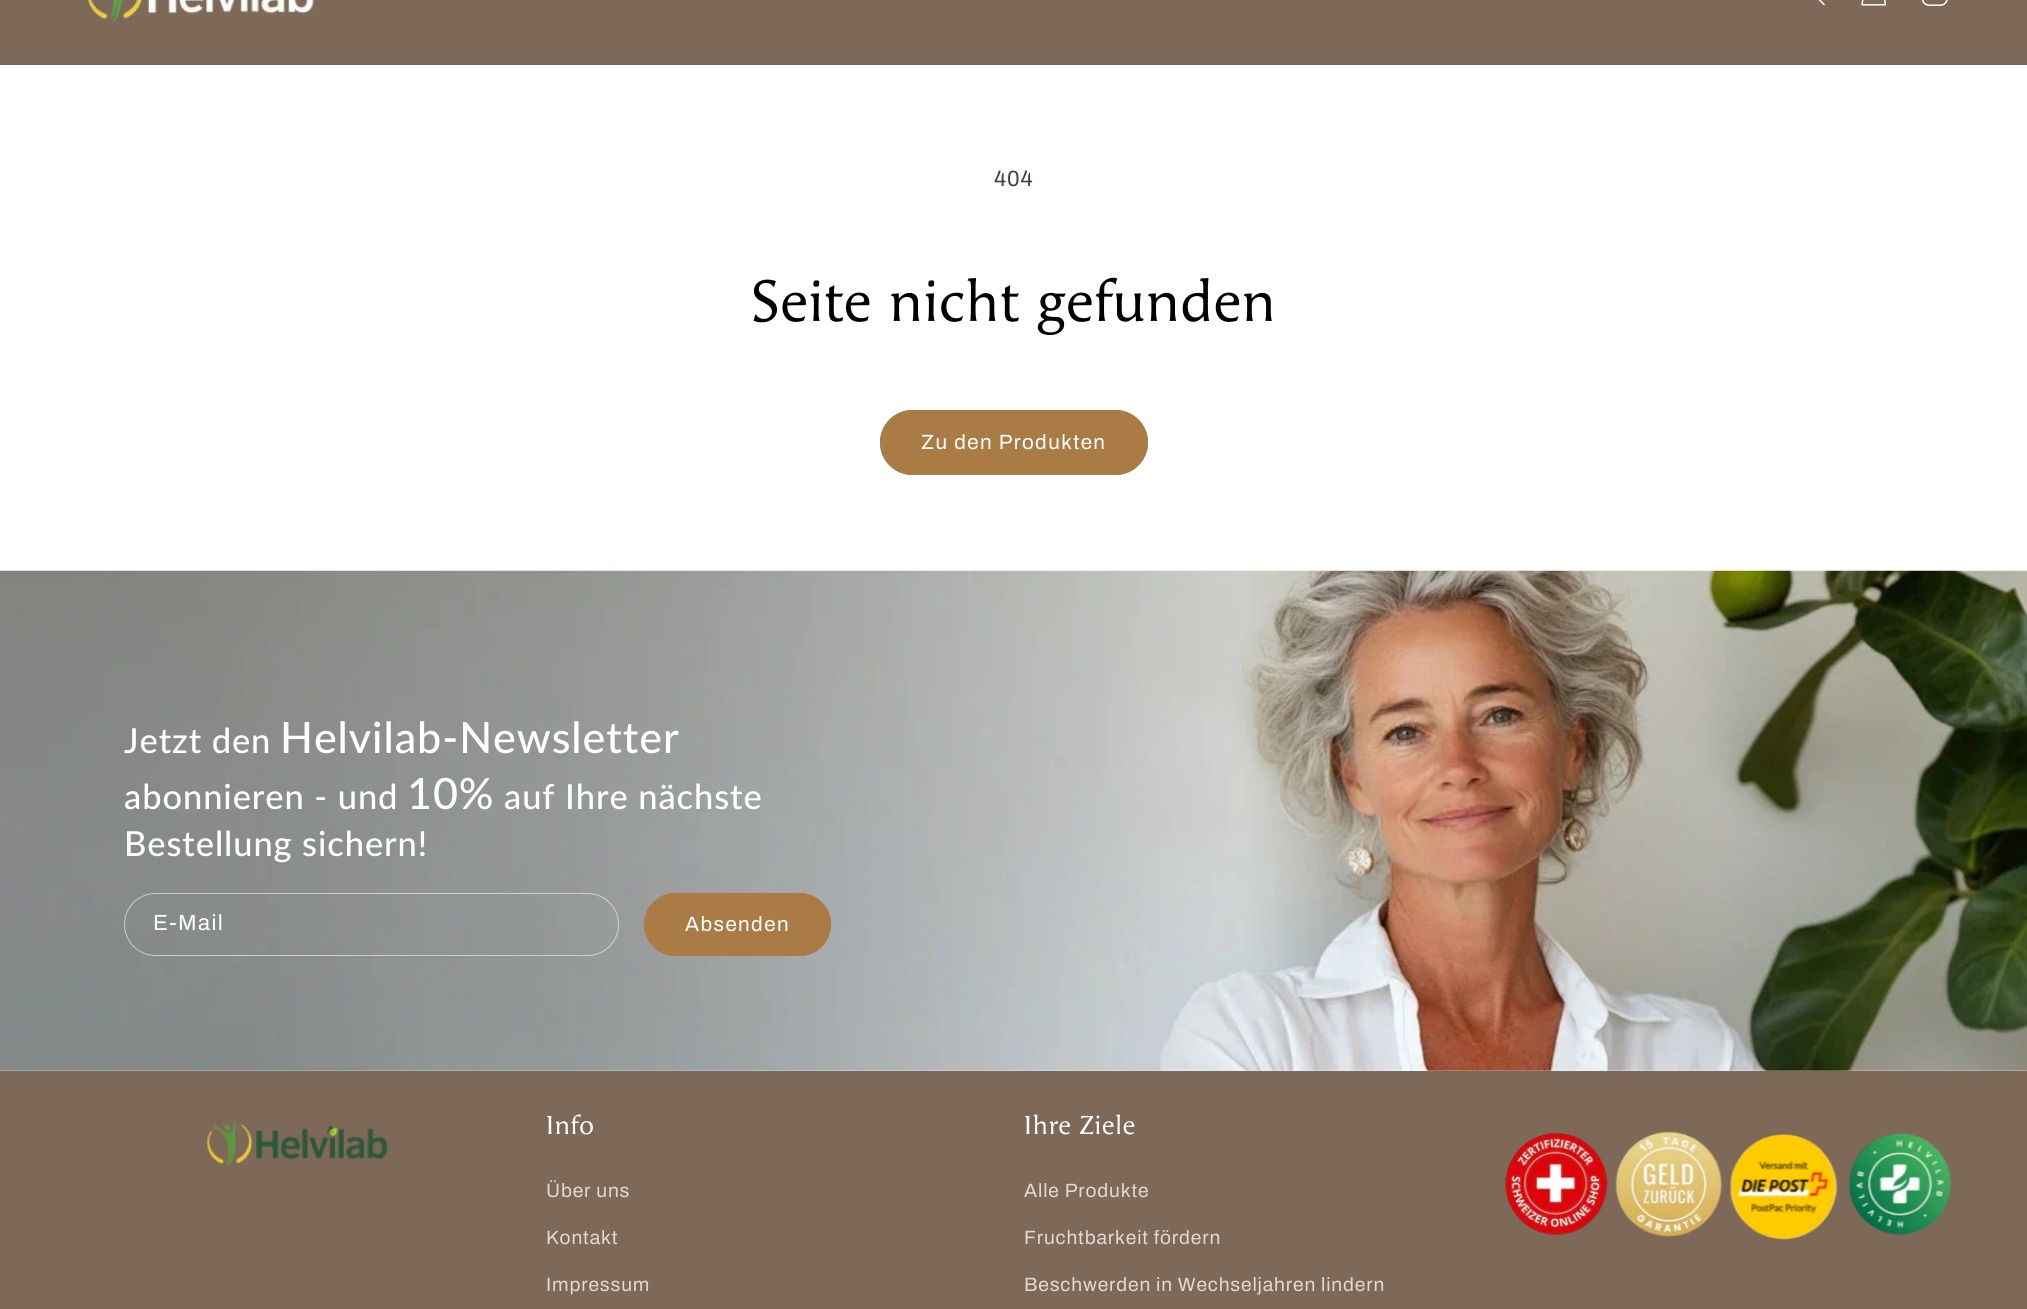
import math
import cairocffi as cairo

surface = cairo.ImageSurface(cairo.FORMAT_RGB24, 2027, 1309)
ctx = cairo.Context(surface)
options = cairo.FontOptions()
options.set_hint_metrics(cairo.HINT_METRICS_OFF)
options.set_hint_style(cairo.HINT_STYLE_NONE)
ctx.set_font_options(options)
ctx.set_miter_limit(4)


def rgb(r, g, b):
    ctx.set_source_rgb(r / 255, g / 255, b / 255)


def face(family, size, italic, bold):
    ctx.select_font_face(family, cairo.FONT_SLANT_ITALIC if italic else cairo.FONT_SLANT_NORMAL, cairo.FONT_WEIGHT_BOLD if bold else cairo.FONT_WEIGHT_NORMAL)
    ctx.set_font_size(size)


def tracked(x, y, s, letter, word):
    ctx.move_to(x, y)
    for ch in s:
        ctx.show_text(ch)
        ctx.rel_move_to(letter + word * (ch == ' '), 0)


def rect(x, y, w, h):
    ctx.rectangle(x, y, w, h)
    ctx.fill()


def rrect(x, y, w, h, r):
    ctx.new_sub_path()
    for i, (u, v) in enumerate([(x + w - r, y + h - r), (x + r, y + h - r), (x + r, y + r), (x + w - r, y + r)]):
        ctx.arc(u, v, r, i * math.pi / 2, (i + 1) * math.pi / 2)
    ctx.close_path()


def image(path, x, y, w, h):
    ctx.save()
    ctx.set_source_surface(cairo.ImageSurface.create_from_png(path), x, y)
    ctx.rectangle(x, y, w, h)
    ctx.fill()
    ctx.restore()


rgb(255, 255, 255)
ctx.paint()
rgb(126, 105, 88)
rect(0, 0, 2027, 64)
rgb(116, 97, 81)
rect(0, 64, 2027, 1)
image('image0.png', 87, 0, 227, 23)
image('image1.png', 1818, 0, 7, 6)
image('image2.png', 1861, 0, 26, 6)
image('image3.png', 1921, 0, 27, 6)
face('Archivo', 22, 0, 0)
rgb(64, 64, 64)
tracked(994, 186, '404', 0.85, 0)
face('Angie', 57.5, 0, 0)
rgb(0, 0, 0)
tracked(751, 321, 'Seite nicht gefunden', 0.9, 0)
rgb(171, 123, 69)
rrect(880, 410, 268, 65, 32.5)
ctx.fill()
rrect(880.5, 410.5, 267, 64, 32)
ctx.set_line_width(1)
ctx.stroke()
face('Archivo', 20.6, 0, 0)
rgb(255, 255, 255)
tracked(921, 449, 'Zu den Produkten', 1.4, 0)
image('image4.png', 0, 570, 2027, 501)
face('Lato Medium', 34.5, 0, 0)
tracked(124, 753, 'Jetzt den', 0.9, 0)
face('Lato Medium', 43.1, 0, 0)
tracked(280, 753, 'Helvilab-Newsletter', 0.9, 0)
face('Lato Medium', 34.5, 0, 0)
tracked(124, 809, 'abonnieren - und', 0.9, 0)
face('Lato Medium', 43.1, 0, 0)
tracked(407, 809, '10%', 0.9, 0)
face('Lato Medium', 34.5, 0, 0)
tracked(504, 809, 'auf Ihre nächste', 0.9, 0)
tracked(124, 856, 'Bestellung sichern!', 0.9, 0)
rrect(124.5, 893.5, 494, 62, 31)
ctx.set_source_rgba(1, 1, 1, 0.55)
ctx.stroke()
face('Archivo', 22, 0, 0)
rgb(255, 255, 255)
tracked(153, 930, 'E-Mail', 1.4, 0)
rgb(171, 123, 69)
rrect(644, 893, 187, 63, 31.5)
ctx.fill()
rrect(644.5, 893.5, 186, 62, 31)
ctx.stroke()
face('Archivo', 20.6, 0, 0)
rgb(255, 255, 255)
tracked(685, 931, 'Absenden', 1.4, 0)
rgb(126, 105, 88)
rect(0, 1071, 2027, 238)
image('image5.png', 206, 1121, 182, 46)
face('Angie', 26, 0, 0)
rgb(255, 255, 255)
tracked(546, 1134, 'Info', 0.9, 0)
face('Archivo', 19.25, 0, 0)
rgb(223, 218, 213)
tracked(546, 1197, 'Über uns', 0.85, 0)
tracked(546, 1244, 'Kontakt', 0.85, 0)
tracked(546, 1291, 'Impressum', 0.85, 0)
face('Angie', 26, 0, 0)
rgb(255, 255, 255)
tracked(1024, 1134, 'Ihre Ziele', 0.9, 0)
face('Archivo', 19.25, 0, 0)
rgb(223, 218, 213)
tracked(1024, 1197, 'Alle Produkte', 0.85, 0)
tracked(1024, 1244, 'Fruchtbarkeit fördern', 0.85, 0)
tracked(1024, 1291, 'Beschwerden in Wechseljahren lindern', 0.85, 0)
image('image6.png', 1505, 1131, 447, 109)
surface.write_to_png('render.png')
